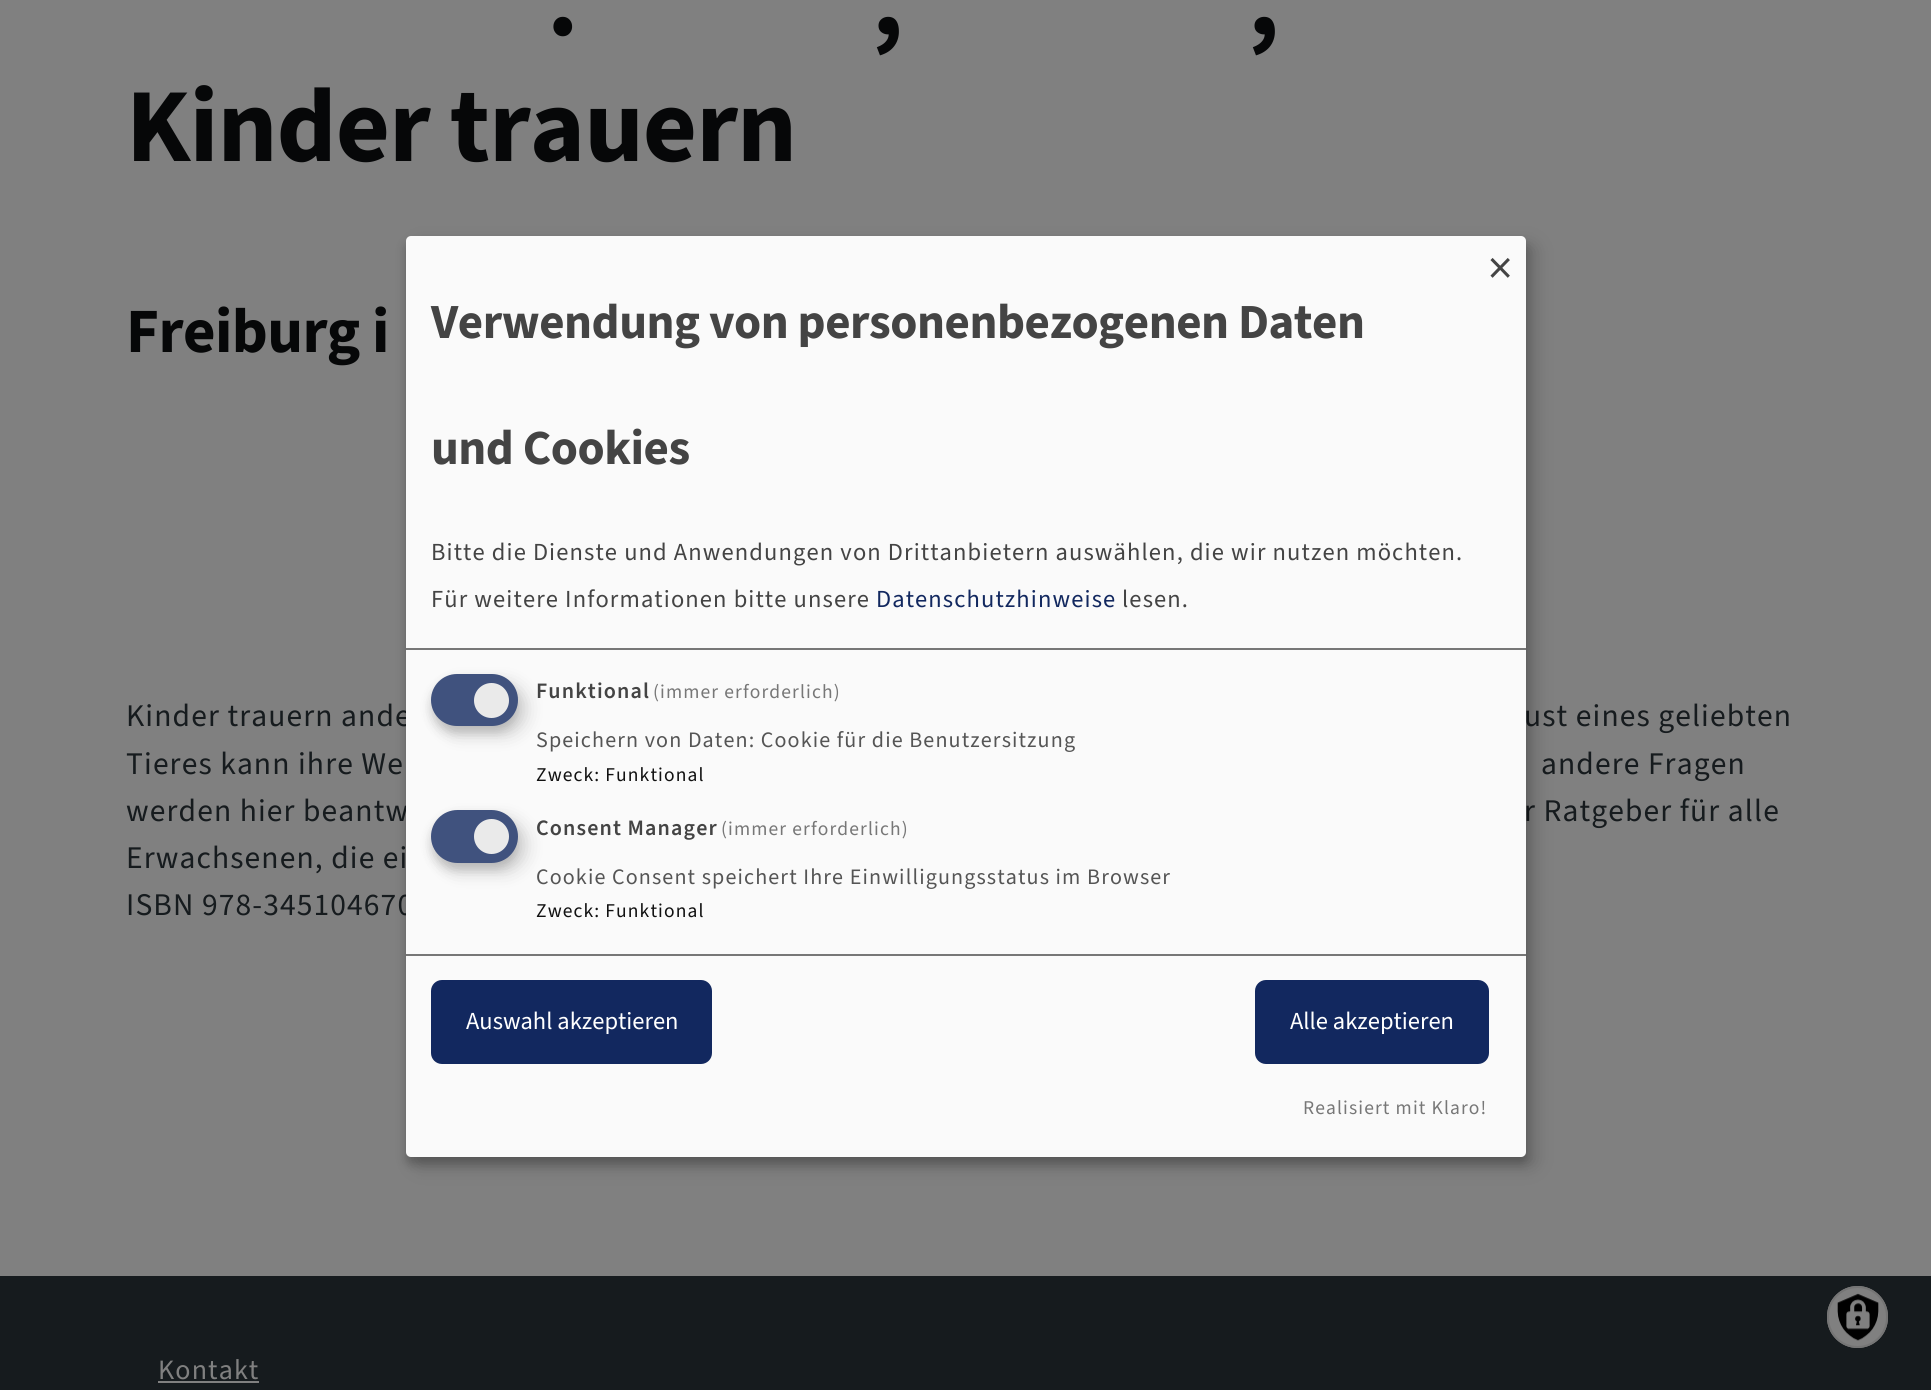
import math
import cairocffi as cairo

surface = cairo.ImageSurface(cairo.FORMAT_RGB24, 1931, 1390)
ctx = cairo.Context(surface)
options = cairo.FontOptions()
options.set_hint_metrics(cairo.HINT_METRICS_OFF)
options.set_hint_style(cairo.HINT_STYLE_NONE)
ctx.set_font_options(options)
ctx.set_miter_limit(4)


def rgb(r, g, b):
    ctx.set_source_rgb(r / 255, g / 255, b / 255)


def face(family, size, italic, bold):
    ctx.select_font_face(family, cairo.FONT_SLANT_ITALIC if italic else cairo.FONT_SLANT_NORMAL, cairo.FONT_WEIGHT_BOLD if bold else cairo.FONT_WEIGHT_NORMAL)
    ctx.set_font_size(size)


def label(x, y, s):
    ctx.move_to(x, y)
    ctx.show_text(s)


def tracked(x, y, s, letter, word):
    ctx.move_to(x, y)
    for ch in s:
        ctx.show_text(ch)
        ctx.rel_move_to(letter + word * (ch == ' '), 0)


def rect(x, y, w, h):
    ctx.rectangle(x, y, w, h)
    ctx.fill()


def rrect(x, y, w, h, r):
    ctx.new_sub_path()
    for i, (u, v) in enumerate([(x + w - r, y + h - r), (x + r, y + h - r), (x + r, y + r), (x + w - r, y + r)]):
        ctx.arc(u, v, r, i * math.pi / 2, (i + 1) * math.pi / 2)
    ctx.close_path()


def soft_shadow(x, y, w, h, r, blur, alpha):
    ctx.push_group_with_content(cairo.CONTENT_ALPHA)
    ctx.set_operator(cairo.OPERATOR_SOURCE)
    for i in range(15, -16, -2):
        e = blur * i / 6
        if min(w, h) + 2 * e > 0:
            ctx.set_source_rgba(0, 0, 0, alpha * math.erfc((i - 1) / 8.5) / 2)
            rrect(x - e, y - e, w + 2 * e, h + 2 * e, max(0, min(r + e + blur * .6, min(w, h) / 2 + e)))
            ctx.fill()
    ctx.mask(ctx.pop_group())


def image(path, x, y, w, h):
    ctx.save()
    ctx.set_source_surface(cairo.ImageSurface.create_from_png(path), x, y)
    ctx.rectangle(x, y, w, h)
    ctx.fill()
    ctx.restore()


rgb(128, 128, 128)
ctx.paint()
face('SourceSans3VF', 105, 0, 1)
rgb(6, 7, 8)
tracked(547, 35, '.', -1, 0)
tracked(872, 35, ',', -1, 0)
tracked(1248, 35, ',', -1, 0)
tracked(126, 161, 'Kinder trauern', -1, 0)
face('SourceSans3VF', 63, 0, 1)
tracked(126, 352, 'Freiburg i', -0.6, 0)
face('SourceSans3VF', 31.5, 0, 0)
rgb(22, 27, 30)
tracked(126, 726, 'Kinder trauern ande', 1.12, 0)
tracked(1524, 726, 'ust eines geliebten', 1.12, 0)
tracked(126, 774, 'Tieres kann ihre We', 1.12, 0)
tracked(1541, 774, 'andere Fragen', 1.12, 0)
tracked(126, 821, 'werden hier beantw', 1.12, 0)
tracked(1524, 821, 'r Ratgeber für alle', 1.12, 0)
tracked(126, 868, 'Erwachsenen, die ei', 1.12, 0)
tracked(126, 915, 'ISBN 978-345104670', 1.12, 0)
rect(0, 1276, 1931, 114)
face('SourceSans3VF', 28, 0, 0)
rgb(128, 128, 128)
tracked(158, 1379, 'Kontakt', 1.12, 0)
rect(158, 1381, 101, 2)
rgb(0, 0, 0)
soft_shadow(415, 245, 1120, 921, 5, 9, 0.19)
soft_shadow(406, 243, 1120, 921, 5, 5, 0.2)
rgb(250, 250, 250)
rrect(406, 236, 1120, 921, 5)
ctx.fill()
face('SourceSans3VF', 49, 0, 0)
rgb(68, 68, 68)
label(1488, 284, '×')
rgb(119, 119, 119)
rect(406, 648, 1120, 2)
face('SourceSans3VF', 49, 0, 1)
rgb(68, 68, 68)
tracked(431, 338, 'Verwendung von personenbezogenen Daten', -0.5, 0)
tracked(431, 464, 'und Cookies', -0.5, 0)
face('SourceSans3VF', 24.5, 0, 0)
tracked(431, 560, 'Bitte die Dienste und Anwendungen von Drittanbietern auswählen, die wir nutzen möchten.', 1.12, 0)
tracked(431, 607, 'Für weitere Informationen bitte unsere', 1.12, 0)
rgb(18, 40, 95)
tracked(876, 607, 'Datenschutzhinweise', 1.12, 0)
rgb(68, 68, 68)
tracked(1122, 607, 'lesen.', 1.12, 0)
rgb(0, 0, 0)
soft_shadow(439, 683, 88, 52, 26, 9, 0.15)
rgb(50, 50, 50)
soft_shadow(431, 681, 87, 52, 26, 5, 0.2)
rgb(64, 82, 126)
rrect(431, 674, 87, 52, 26)
ctx.fill()
rgb(234, 234, 234)
ctx.arc(491.5, 700.5, 17.5, 0, 2 * math.pi)
ctx.fill()
face('SourceSans3VF SemiBold', 22.05, 0, 0)
rgb(68, 68, 68)
tracked(536, 698, 'Funktional', 1.12, 0)
face('SourceSans3VF', 19.5, 0, 0)
rgb(119, 119, 119)
tracked(653, 698, '(immer erforderlich)', 1.12, 0)
face('SourceSans3VF', 22.05, 0, 0)
rgb(85, 85, 85)
tracked(536, 747, 'Speichern von Daten: Cookie für die Benutzersitzung', 1.12, 0)
face('SourceSans3VF', 19.5, 0, 0)
rgb(17, 17, 17)
tracked(536, 781, 'Zweck: Funktional', 1.12, 0)
rgb(0, 0, 0)
soft_shadow(439, 819, 88, 53, 26.5, 9, 0.15)
rgb(50, 50, 50)
soft_shadow(431, 817, 87, 53, 26.5, 5, 0.2)
rgb(64, 82, 126)
rrect(431, 810, 87, 53, 26.5)
ctx.fill()
rgb(234, 234, 234)
ctx.arc(491.5, 836.5, 17.5, 0, 2 * math.pi)
ctx.fill()
face('SourceSans3VF SemiBold', 22.05, 0, 0)
rgb(68, 68, 68)
tracked(536, 835, 'Consent Manager', 1.12, 0)
face('SourceSans3VF', 19.5, 0, 0)
rgb(119, 119, 119)
tracked(721, 835, '(immer erforderlich)', 1.12, 0)
face('SourceSans3VF', 22.05, 0, 0)
rgb(85, 85, 85)
tracked(536, 884, 'Cookie Consent speichert Ihre Einwilligungsstatus im Browser', 1.12, 0)
face('SourceSans3VF', 19.5, 0, 0)
rgb(17, 17, 17)
tracked(536, 917, 'Zweck: Funktional', 1.12, 0)
rgb(119, 119, 119)
rect(406, 954, 1120, 2)
rgb(18, 40, 95)
rrect(433.5, 982.5, 276, 79, 8.5)
ctx.fill_preserve()
ctx.set_line_width(5)
ctx.stroke()
face('SourceSans3VF', 24.5, 0, 0)
rgb(255, 255, 255)
label(466, 1029, 'Auswahl akzeptieren')
rgb(18, 40, 95)
rrect(1257.5, 982.5, 229, 79, 8.5)
ctx.fill_preserve()
ctx.stroke()
rgb(255, 255, 255)
label(1290, 1029, 'Alle akzeptieren')
face('SourceSans3VF', 19.5, 0, 0)
rgb(119, 119, 119)
tracked(1303, 1114, 'Realisiert mit Klaro!', 1.12, 0)
rgb(128, 128, 128)
rrect(1827, 1286, 61, 62, 30.5)
ctx.fill()
image('image0.png', 1837, 1293, 42, 48)
rrect(1828, 1287, 59, 60, 29.5)
rgb(117, 117, 117)
ctx.set_line_width(2)
ctx.stroke()
surface.write_to_png('render.png')
